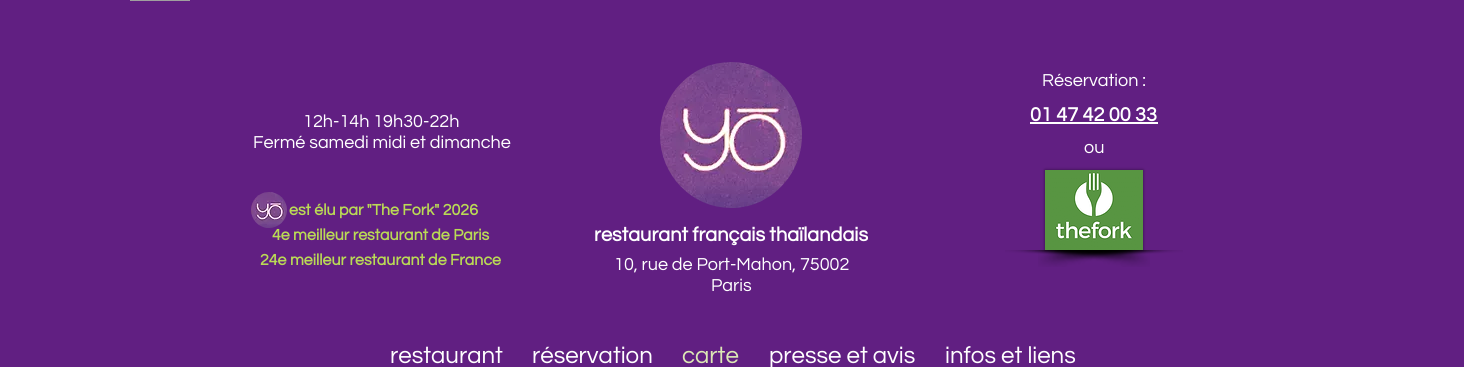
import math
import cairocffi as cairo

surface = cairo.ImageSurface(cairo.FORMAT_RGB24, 1464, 367)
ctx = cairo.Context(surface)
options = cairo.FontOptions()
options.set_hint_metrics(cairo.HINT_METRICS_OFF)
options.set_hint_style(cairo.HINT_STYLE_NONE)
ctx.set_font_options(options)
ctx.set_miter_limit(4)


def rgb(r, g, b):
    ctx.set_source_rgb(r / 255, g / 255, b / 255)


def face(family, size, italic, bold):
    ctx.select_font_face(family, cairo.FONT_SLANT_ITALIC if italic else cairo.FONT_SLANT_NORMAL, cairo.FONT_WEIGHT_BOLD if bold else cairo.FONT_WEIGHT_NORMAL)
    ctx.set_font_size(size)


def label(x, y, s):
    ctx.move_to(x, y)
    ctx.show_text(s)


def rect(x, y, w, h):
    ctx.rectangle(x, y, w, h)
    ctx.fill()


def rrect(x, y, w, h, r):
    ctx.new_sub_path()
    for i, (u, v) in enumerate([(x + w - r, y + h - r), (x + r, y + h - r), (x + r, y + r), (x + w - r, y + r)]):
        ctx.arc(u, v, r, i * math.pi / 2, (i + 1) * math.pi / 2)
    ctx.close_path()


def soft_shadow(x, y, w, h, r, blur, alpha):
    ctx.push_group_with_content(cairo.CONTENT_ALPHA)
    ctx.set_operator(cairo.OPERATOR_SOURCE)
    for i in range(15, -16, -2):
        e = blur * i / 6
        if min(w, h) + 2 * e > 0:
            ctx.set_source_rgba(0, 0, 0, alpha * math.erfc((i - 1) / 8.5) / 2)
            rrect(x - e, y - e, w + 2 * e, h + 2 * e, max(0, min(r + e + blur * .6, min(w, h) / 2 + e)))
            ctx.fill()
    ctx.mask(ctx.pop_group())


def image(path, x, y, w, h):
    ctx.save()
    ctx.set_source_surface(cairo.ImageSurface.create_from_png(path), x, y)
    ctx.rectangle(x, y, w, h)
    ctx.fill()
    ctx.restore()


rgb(97, 31, 130)
ctx.paint()
rgb(160, 160, 159)
rect(130, 0, 60, 1)
image('image0.png', 660, 62, 142, 146)
face('Questrial', 18, 0, 0)
rgb(255, 255, 255)
label(1042, 86, 'Réservation :')
label(303, 127, '12h-14h 19h30-22h')
label(253, 148, 'Fermé samedi midi et dimanche')
face('Questrial', 20, 0, 1)
label(1030, 121, '01 47 42 00 33')
rect(1030, 122, 128, 2)
face('Questrial', 18, 0, 0)
label(1084, 153, 'ou')
image('image1.png', 251, 192, 36, 36)
rgb(0, 0, 0)
soft_shadow(1045, 170, 98, 80, 0, 1.5, 0.5)
image('image2.png', 1045, 170, 98, 80)
image('image4.png', 1038, 250, 145, 17)
image('image3.png', 1005, 250, 145, 17)
face('Questrial', 16, 0, 1)
rgb(186, 218, 85)
label(289, 215, 'est élu par "The Fork" 2026')
label(272, 240, '4e meilleur restaurant de Paris')
label(260, 265, '24e meilleur restaurant de France')
face('Questrial', 20, 0, 1)
rgb(255, 255, 255)
label(594, 241, 'restaurant français thaïlandais')
face('Questrial', 18, 0, 0)
label(614, 270, '10, rue de Port-Mahon, 75002')
label(711, 291, 'Paris')
face('Questrial', 24, 0, 0)
label(390, 363, 'restaurant')
label(532, 363, 'réservation')
rgb(220, 232, 181)
label(682, 363, 'carte')
rgb(255, 255, 255)
label(769, 363, 'presse et avis')
label(945, 363, 'infos et liens')
surface.write_to_png('render.png')
